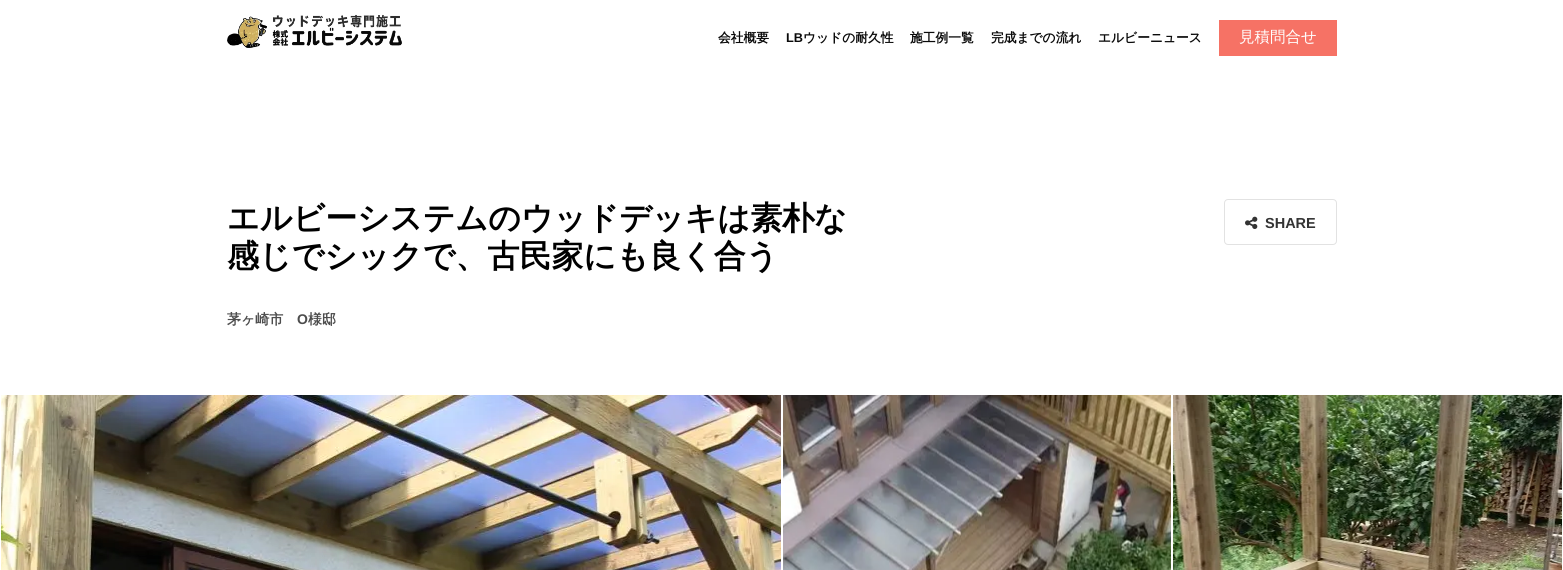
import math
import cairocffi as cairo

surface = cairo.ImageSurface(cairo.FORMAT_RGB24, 1563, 570)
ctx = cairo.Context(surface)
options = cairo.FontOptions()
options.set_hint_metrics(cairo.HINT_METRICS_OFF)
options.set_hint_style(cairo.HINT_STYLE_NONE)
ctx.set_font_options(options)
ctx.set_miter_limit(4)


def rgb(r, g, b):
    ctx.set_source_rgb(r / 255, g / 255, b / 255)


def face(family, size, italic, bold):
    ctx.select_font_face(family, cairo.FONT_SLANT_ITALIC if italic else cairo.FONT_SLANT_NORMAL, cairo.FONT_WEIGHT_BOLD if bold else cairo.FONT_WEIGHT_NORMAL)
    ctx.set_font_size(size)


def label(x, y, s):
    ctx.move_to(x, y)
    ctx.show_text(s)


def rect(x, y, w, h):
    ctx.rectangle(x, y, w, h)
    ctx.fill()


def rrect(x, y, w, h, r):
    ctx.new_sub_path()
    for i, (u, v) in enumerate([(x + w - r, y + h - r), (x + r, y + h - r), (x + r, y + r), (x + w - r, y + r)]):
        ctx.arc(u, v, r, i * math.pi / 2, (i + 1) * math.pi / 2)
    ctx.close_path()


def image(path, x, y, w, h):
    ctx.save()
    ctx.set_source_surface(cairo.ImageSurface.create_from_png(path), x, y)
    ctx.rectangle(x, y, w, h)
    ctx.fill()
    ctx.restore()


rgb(255, 255, 255)
ctx.paint()
image('image0.png', 227, 14, 175, 34)
face('WenQuanYi Zen Hei', 12.75, 0, 1)
rgb(10, 10, 10)
label(718, 42, '会社概要')
face('Liberation Sans', 12.75, 0, 1)
label(786, 42, 'LB')
face('WenQuanYi Zen Hei', 12.75, 0, 1)
label(803, 42, 'ウッドの耐久性')
label(910, 42, '施工例一覧')
label(991, 42, '完成までの流れ')
label(1098, 42, 'エルビーニュース')
rgb(246, 114, 101)
rect(1219, 20, 118, 36)
face('WenQuanYi Zen Hei Medium', 15.5, 0, 0)
rgb(255, 255, 255)
label(1239, 42, '見積問合せ')
face('WenQuanYi Zen Hei', 32, 0, 1)
rgb(0, 0, 0)
label(227, 229, 'エルビーシステムのウッドデッキは素朴な')
label(227, 267, '感じでシックで、古民家にも良く合う')
face('WenQuanYi Zen Hei', 14, 0, 1)
rgb(77, 77, 77)
label(227, 324, '茅ヶ崎市')
face('Liberation Sans', 14, 0, 1)
label(297, 324, 'O')
face('WenQuanYi Zen Hei', 14, 0, 1)
label(308, 324, '様邸')
rrect(1224.5, 199.5, 112, 45, 3.5)
rgb(226, 226, 226)
ctx.set_line_width(1)
ctx.stroke()
image('image1.png', 1245, 216, 13, 13)
face('Liberation Sans', 14.5, 0, 1)
rgb(51, 51, 51)
label(1265, 228, 'SHARE')
image('image2.png', 1, 395, 780, 175)
image('image3.png', 783, 395, 388, 175)
image('image4.png', 1173, 395, 389, 175)
surface.write_to_png('render.png')
